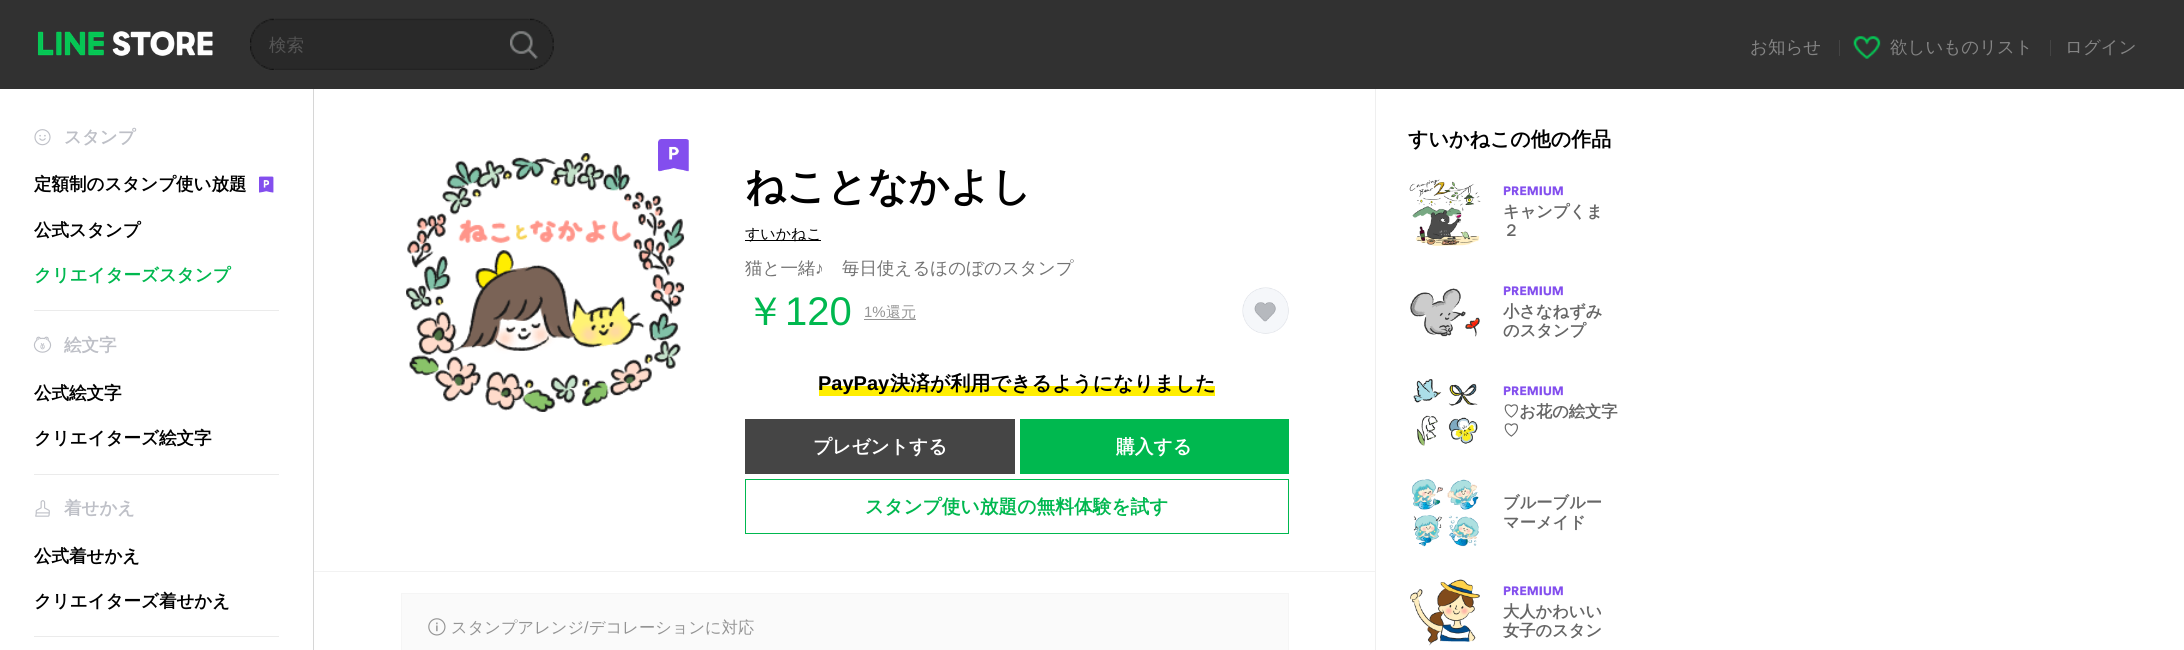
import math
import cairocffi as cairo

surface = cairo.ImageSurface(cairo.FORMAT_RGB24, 2184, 650)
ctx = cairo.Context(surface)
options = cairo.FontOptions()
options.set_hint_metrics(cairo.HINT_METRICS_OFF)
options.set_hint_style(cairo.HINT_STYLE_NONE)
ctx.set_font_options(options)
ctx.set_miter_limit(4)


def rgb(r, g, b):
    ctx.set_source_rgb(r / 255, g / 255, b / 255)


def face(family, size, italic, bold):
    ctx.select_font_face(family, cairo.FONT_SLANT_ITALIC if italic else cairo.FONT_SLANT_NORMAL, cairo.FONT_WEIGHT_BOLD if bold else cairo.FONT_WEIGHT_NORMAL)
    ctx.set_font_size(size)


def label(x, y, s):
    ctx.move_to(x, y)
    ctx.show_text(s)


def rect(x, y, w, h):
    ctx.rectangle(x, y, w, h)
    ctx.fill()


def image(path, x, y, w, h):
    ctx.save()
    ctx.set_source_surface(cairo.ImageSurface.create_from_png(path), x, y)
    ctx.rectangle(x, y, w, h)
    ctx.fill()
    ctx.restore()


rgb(255, 255, 255)
ctx.paint()
rgb(49, 49, 49)
rect(0, 0, 2184, 89)
image('image0.png', 37, 31, 176, 25)
image('image1.png', 250, 18, 304, 52)
face('WenQuanYi Zen Hei Medium', 17.5, 0, 0)
rgb(84, 84, 84)
label(269, 51, '検索')
image('image2.png', 510, 31, 28, 28)
rgb(132, 132, 132)
label(1750, 53, 'お知らせ')
rgb(68, 68, 68)
rect(1839, 40, 1, 16)
image('image3.png', 1853, 36, 28, 23)
rgb(132, 132, 132)
label(1890, 53, '欲しいものリスト')
rgb(68, 68, 68)
rect(2050, 40, 1, 16)
rgb(132, 132, 132)
label(2065, 53, 'ログイン')
image('image4.png', 34, 129, 17, 17)
face('WenQuanYi Zen Hei', 17.5, 0, 1)
rgb(190, 192, 199)
label(64, 143, 'スタンプ')
rgb(0, 0, 0)
label(34, 190, '定額制のスタンプ使い放題')
image('image5.png', 259, 176, 15, 17)
label(34, 236, '公式スタンプ')
rgb(0, 184, 79)
label(34, 281, 'クリエイターズスタンプ')
rgb(235, 235, 235)
rect(34, 310, 245, 1)
image('image6.png', 33, 336, 19, 17)
rgb(190, 192, 199)
label(64, 351, '絵文字')
rgb(0, 0, 0)
label(34, 399, '公式絵文字')
label(34, 444, 'クリエイターズ絵文字')
rgb(235, 235, 235)
rect(34, 474, 245, 1)
image('image7.png', 35, 500, 15, 17)
rgb(190, 192, 199)
label(64, 514, '着せかえ')
rgb(0, 0, 0)
label(34, 562, '公式着せかえ')
label(34, 607, 'クリエイターズ着せかえ')
rgb(235, 235, 235)
rect(34, 636, 245, 1)
rgb(214, 214, 214)
rect(313, 89, 1, 561)
image('image9.png', 406, 153, 279, 259)
image('image8.png', 658, 139, 31, 33)
face('WenQuanYi Zen Hei', 40, 0, 1)
rgb(0, 0, 0)
label(745, 200, 'ねことなかよし')
rect(745, 240, 76, 1)
face('WenQuanYi Zen Hei Medium', 15, 0, 0)
label(745, 239, 'すいかねこ')
face('WenQuanYi Zen Hei Medium', 17.5, 0, 0)
rgb(115, 115, 115)
label(745, 274, '猫と一緒')
face('Liberation Sans', 17.5, 0, 0)
label(815, 274, '♪')
face('WenQuanYi Zen Hei Medium', 17.5, 0, 0)
label(842, 274, '毎日使えるほのぼのスタンプ')
face('WenQuanYi Zen Hei Medium', 40, 0, 0)
rgb(0, 184, 79)
label(745, 325, '￥')
face('Liberation Sans', 40, 0, 0)
label(785, 325, '120')
face('Liberation Sans', 15, 0, 0)
rgb(148, 148, 148)
label(864, 317, '1%')
rect(864, 319, 52, 1)
face('WenQuanYi Zen Hei Medium', 15, 0, 0)
label(886, 317, '還元')
image('image10.png', 1242, 287, 47, 47)
rgb(255, 238, 0)
rect(819, 386, 396, 10)
face('Liberation Sans', 20, 0, 1)
rgb(0, 0, 0)
label(818, 390, 'PayPay')
face('WenQuanYi Zen Hei', 20, 0, 1)
label(890, 390, '決済が利用できるようになりました')
rgb(69, 69, 69)
rect(745, 419, 270, 55)
face('WenQuanYi Zen Hei', 18.75, 0, 1)
rgb(255, 255, 255)
label(813, 453, 'プレゼントする')
rgb(0, 184, 79)
rect(1020, 419, 269, 55)
rgb(255, 255, 255)
label(1116, 453, '購入する')
ctx.rectangle(745.5, 479.5, 543, 54)
rgb(0, 184, 79)
ctx.set_line_width(1)
ctx.stroke()
label(865, 513, 'スタンプ使い放題の無料体験を試す')
rgb(242, 242, 242)
rect(314, 571, 1062, 1)
rgb(239, 239, 239)
rect(1375, 89, 1, 561)
rgb(250, 250, 250)
ctx.rectangle(401.5, 593.5, 887, 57)
ctx.fill_preserve()
rgb(245, 245, 245)
ctx.stroke()
image('image11.png', 428, 618, 18, 18)
face('WenQuanYi Zen Hei Medium', 16.25, 0, 0)
rgb(148, 148, 148)
label(451, 633, 'スタンプアレンジ')
face('Liberation Sans', 16.25, 0, 0)
label(584, 633, '/')
face('WenQuanYi Zen Hei Medium', 16.25, 0, 0)
label(589, 633, 'デコレーションに対応')
face('WenQuanYi Zen Hei', 20, 0, 1)
rgb(0, 0, 0)
label(1408, 146, 'すいかねこの他の作品')
image('image12.png', 1409, 179, 72, 67)
image('image13.png', 1503, 186, 60, 10)
face('WenQuanYi Zen Hei', 16.25, 0, 1)
rgb(102, 102, 102)
label(1503, 217, 'キャンプくま')
label(1503, 236, '２')
image('image14.png', 1410, 288, 70, 49)
image('image13.png', 1503, 286, 60, 10)
label(1503, 317, '小さなねずみ')
label(1503, 336, 'のスタンプ')
image('image15.png', 1413, 379, 65, 67)
image('image13.png', 1503, 386, 60, 10)
label(1503, 417, '♡お花の絵文字')
label(1503, 436, '♡')
image('image16.png', 1411, 479, 68, 68)
label(1503, 508, 'ブルーブルー')
label(1503, 528, 'マーメイド')
image('image17.png', 1410, 579, 70, 67)
image('image13.png', 1503, 586, 60, 10)
label(1503, 617, '大人かわいい')
label(1503, 636, '女子のスタン')
surface.write_to_png('render.png')
